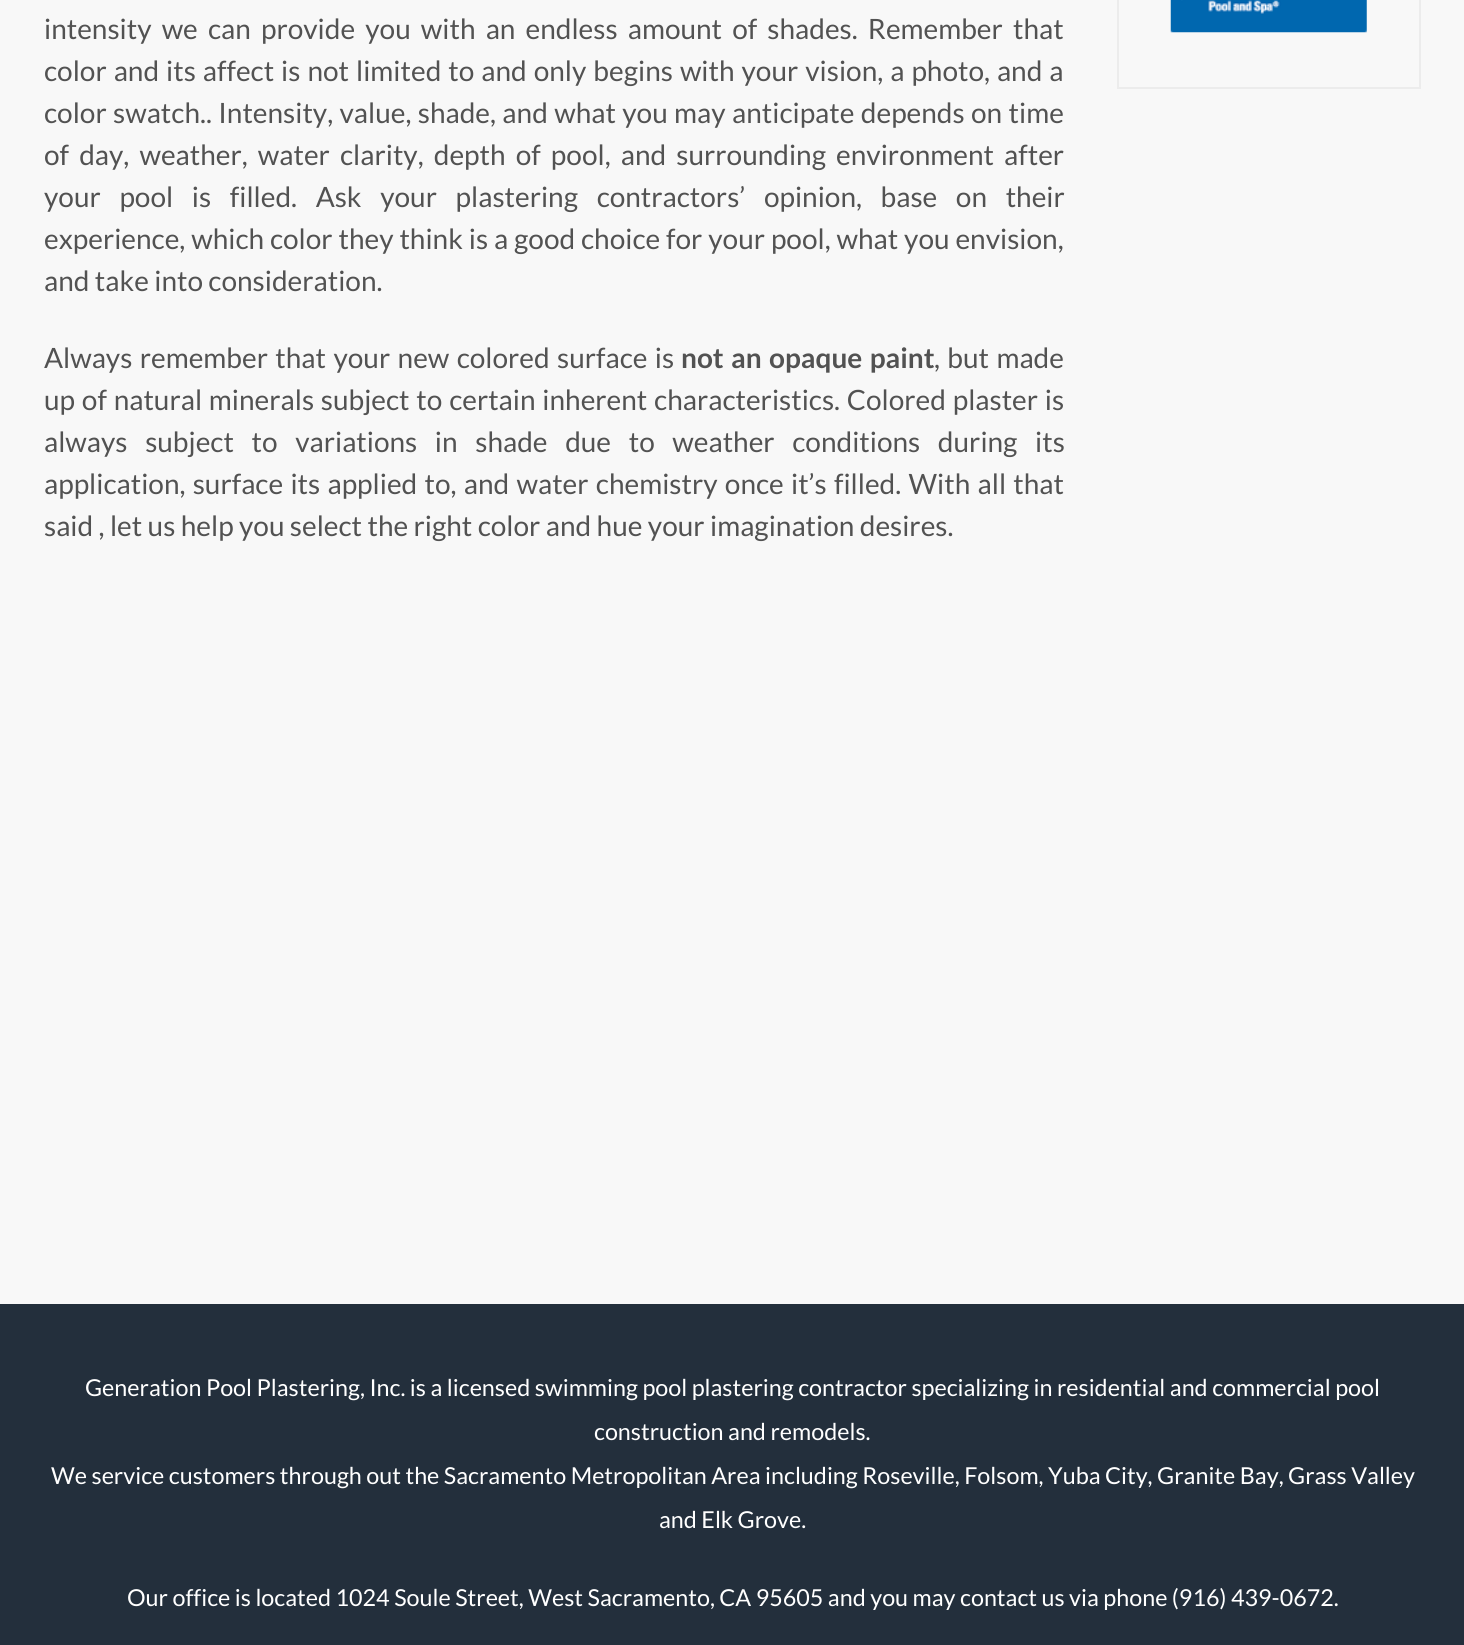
import math
import cairocffi as cairo

surface = cairo.ImageSurface(cairo.FORMAT_RGB24, 1464, 1645)
ctx = cairo.Context(surface)
options = cairo.FontOptions()
options.set_hint_metrics(cairo.HINT_METRICS_OFF)
options.set_hint_style(cairo.HINT_STYLE_NONE)
ctx.set_font_options(options)
ctx.set_miter_limit(4)


def rgb(r, g, b):
    ctx.set_source_rgb(r / 255, g / 255, b / 255)


def face(family, size, italic, bold):
    ctx.select_font_face(family, cairo.FONT_SLANT_ITALIC if italic else cairo.FONT_SLANT_NORMAL, cairo.FONT_WEIGHT_BOLD if bold else cairo.FONT_WEIGHT_NORMAL)
    ctx.set_font_size(size)


def label(x, y, s):
    ctx.move_to(x, y)
    ctx.show_text(s)


def tracked(x, y, s, letter, word):
    ctx.move_to(x, y)
    for ch in s:
        ctx.show_text(ch)
        ctx.rel_move_to(letter + word * (ch == ' '), 0)


def rect(x, y, w, h):
    ctx.rectangle(x, y, w, h)
    ctx.fill()


def image(path, x, y, w, h):
    ctx.save()
    ctx.set_source_surface(cairo.ImageSurface.create_from_png(path), x, y)
    ctx.rectangle(x, y, w, h)
    ctx.fill()
    ctx.restore()


rgb(35, 47, 60)
ctx.paint()
rgb(248, 248, 248)
rect(0, 0, 1464, 1304)
face('Lato', 28, 0, 0)
rgb(82, 82, 82)
tracked(44, 39, 'intensity we can provide you with an endless amount of shades. Remember that', 0, 4.75)
tracked(44, 81, 'color and its affect is not limited to and only begins with your vision, a photo, and a', 0, 1.6)
tracked(44, 123, 'color swatch.. Intensity, value, shade, and what you may anticipate depends on time', 0, 1)
tracked(44, 165, 'of day, weather, water clarity, depth of pool, and surrounding environment after', 0, 4.75)
tracked(44, 207, 'your pool is filled. Ask your plastering contractors’ opinion, base on their', 0, 13.25)
tracked(44, 249, 'experience, which color they think is a good choice for your pool, what you envision,', 0, 0.5)
label(44, 291, 'and take into consideration.')
tracked(44, 368, 'Always remember that your new colored surface is', 0, 2)
face('Lato', 28, 0, 1)
tracked(681, 368, 'not an opaque paint', 0, 2)
face('Lato', 28, 0, 0)
tracked(934, 368, ', but made', 0, 2)
tracked(44, 410, 'up of natural minerals subject to certain inherent characteristics. Colored plaster is', 0, 1.4)
tracked(44, 452, 'always subject to variations in shade due to weather conditions during its', 0, 12.25)
tracked(44, 494, 'application, surface its applied to, and water chemistry once it’s filled. With all that', 0, 1.9)
label(44, 536, 'said , let us help you select the right color and hue your imagination desires.')
ctx.rectangle(1118, -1, 302, 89)
rgb(236, 236, 236)
ctx.stroke()
image('image0.png', 1170, 0, 197, 33)
face('Lato', 23.33, 0, 0)
rgb(255, 255, 255)
label(85, 1396, 'Generation Pool Plastering, Inc. is a licensed swimming pool plastering contractor specializing in residential and commercial pool')
label(594, 1440, 'construction and remodels.')
label(51, 1484, 'We service customers through out the Sacramento Metropolitan Area including Roseville, Folsom, Yuba City, Granite Bay, Grass Valley')
label(659, 1528, 'and Elk Grove.')
label(127, 1606, 'Our office is located 1024 Soule Street, West Sacramento, CA 95605 and you may contact us via phone (916) 439-0672.')
surface.write_to_png('render.png')
